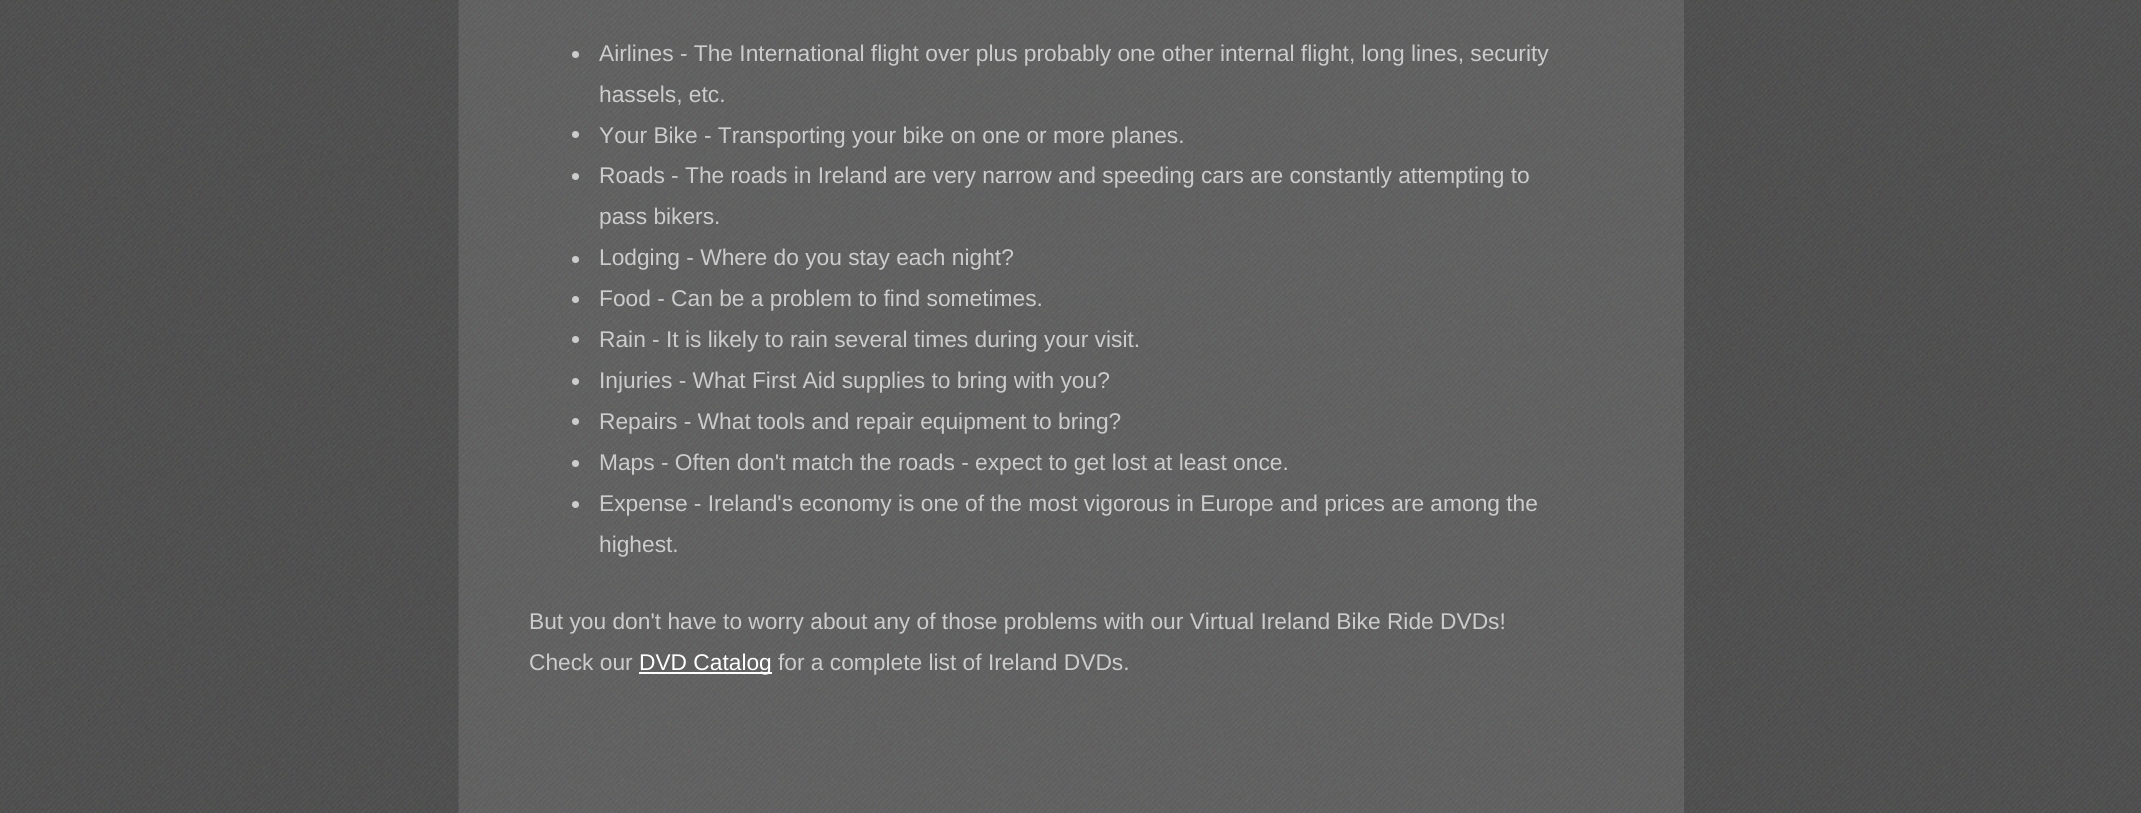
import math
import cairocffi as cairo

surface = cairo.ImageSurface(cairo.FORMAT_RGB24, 2141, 813)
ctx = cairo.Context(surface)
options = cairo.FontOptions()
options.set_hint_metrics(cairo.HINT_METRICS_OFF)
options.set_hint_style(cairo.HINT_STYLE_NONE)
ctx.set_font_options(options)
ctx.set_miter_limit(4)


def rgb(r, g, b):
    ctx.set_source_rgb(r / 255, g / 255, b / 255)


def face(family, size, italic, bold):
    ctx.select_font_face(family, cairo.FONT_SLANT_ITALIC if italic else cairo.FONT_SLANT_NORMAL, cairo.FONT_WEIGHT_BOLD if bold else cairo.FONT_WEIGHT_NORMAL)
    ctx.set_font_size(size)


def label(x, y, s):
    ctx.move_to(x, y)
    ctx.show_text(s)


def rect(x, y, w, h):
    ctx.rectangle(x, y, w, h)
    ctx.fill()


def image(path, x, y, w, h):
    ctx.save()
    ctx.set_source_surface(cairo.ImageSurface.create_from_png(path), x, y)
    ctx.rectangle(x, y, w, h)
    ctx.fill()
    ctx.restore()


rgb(255, 255, 255)
ctx.paint()
image('image0.png', 0, 0, 2141, 813)
rgb(102, 103, 103)
rect(1683, 0, 1, 813)
image('image1.png', 458, 0, 1226, 813)
rgb(204, 204, 204)
ctx.arc(575.5, 54.5, 3.5, 0, 2 * math.pi)
ctx.fill()
face('Liberation Sans', 22.75, 0, 0)
label(599, 61, 'Airlines - The International flight over plus probably one other internal flight, long lines, security')
label(599, 102, 'hassels, etc.')
ctx.new_path()
ctx.arc(575.5, 134.5, 3.5, 0, 2 * math.pi)
ctx.fill()
label(599, 143, 'Your Bike - Transporting your bike on one or more planes.')
ctx.new_path()
ctx.arc(575.5, 176.5, 3.5, 0, 2 * math.pi)
ctx.fill()
label(599, 183, 'Roads - The roads in Ireland are very narrow and speeding cars are constantly attempting to')
label(599, 224, 'pass bikers.')
ctx.new_path()
ctx.arc(575.5, 259.5, 3.5, 0, 2 * math.pi)
ctx.fill()
label(599, 265, 'Lodging - Where do you stay each night?')
ctx.new_path()
ctx.arc(575.5, 299.5, 3.5, 0, 2 * math.pi)
ctx.fill()
label(599, 306, 'Food - Can be a problem to find sometimes.')
ctx.new_path()
ctx.arc(575.5, 339.5, 3.5, 0, 2 * math.pi)
ctx.fill()
label(599, 347, 'Rain - It is likely to rain several times during your visit.')
ctx.new_path()
ctx.arc(575.5, 381.5, 3.5, 0, 2 * math.pi)
ctx.fill()
label(599, 388, 'Injuries - What First Aid supplies to bring with you?')
ctx.new_path()
ctx.arc(575.5, 421.5, 3.5, 0, 2 * math.pi)
ctx.fill()
label(599, 429, 'Repairs - What tools and repair equipment to bring?')
ctx.new_path()
ctx.arc(575.5, 463.5, 3.5, 0, 2 * math.pi)
ctx.fill()
label(599, 470, 'Maps - Often don\'t match the roads - expect to get lost at least once.')
ctx.new_path()
ctx.arc(575.5, 504.5, 3.5, 0, 2 * math.pi)
ctx.fill()
label(599, 511, 'Expense - Ireland\'s economy is one of the most vigorous in Europe and prices are among the')
label(599, 552, 'highest.')
label(529, 629, 'But you don\'t have to worry about any of those problems with our Virtual Ireland Bike Ride DVDs!')
label(529, 670, 'Check our')
rgb(255, 255, 255)
rect(639, 672, 133, 2)
label(639, 670, 'DVD Catalog')
rgb(204, 204, 204)
label(778, 670, 'for a complete list of Ireland DVDs.')
surface.write_to_png('render.png')
